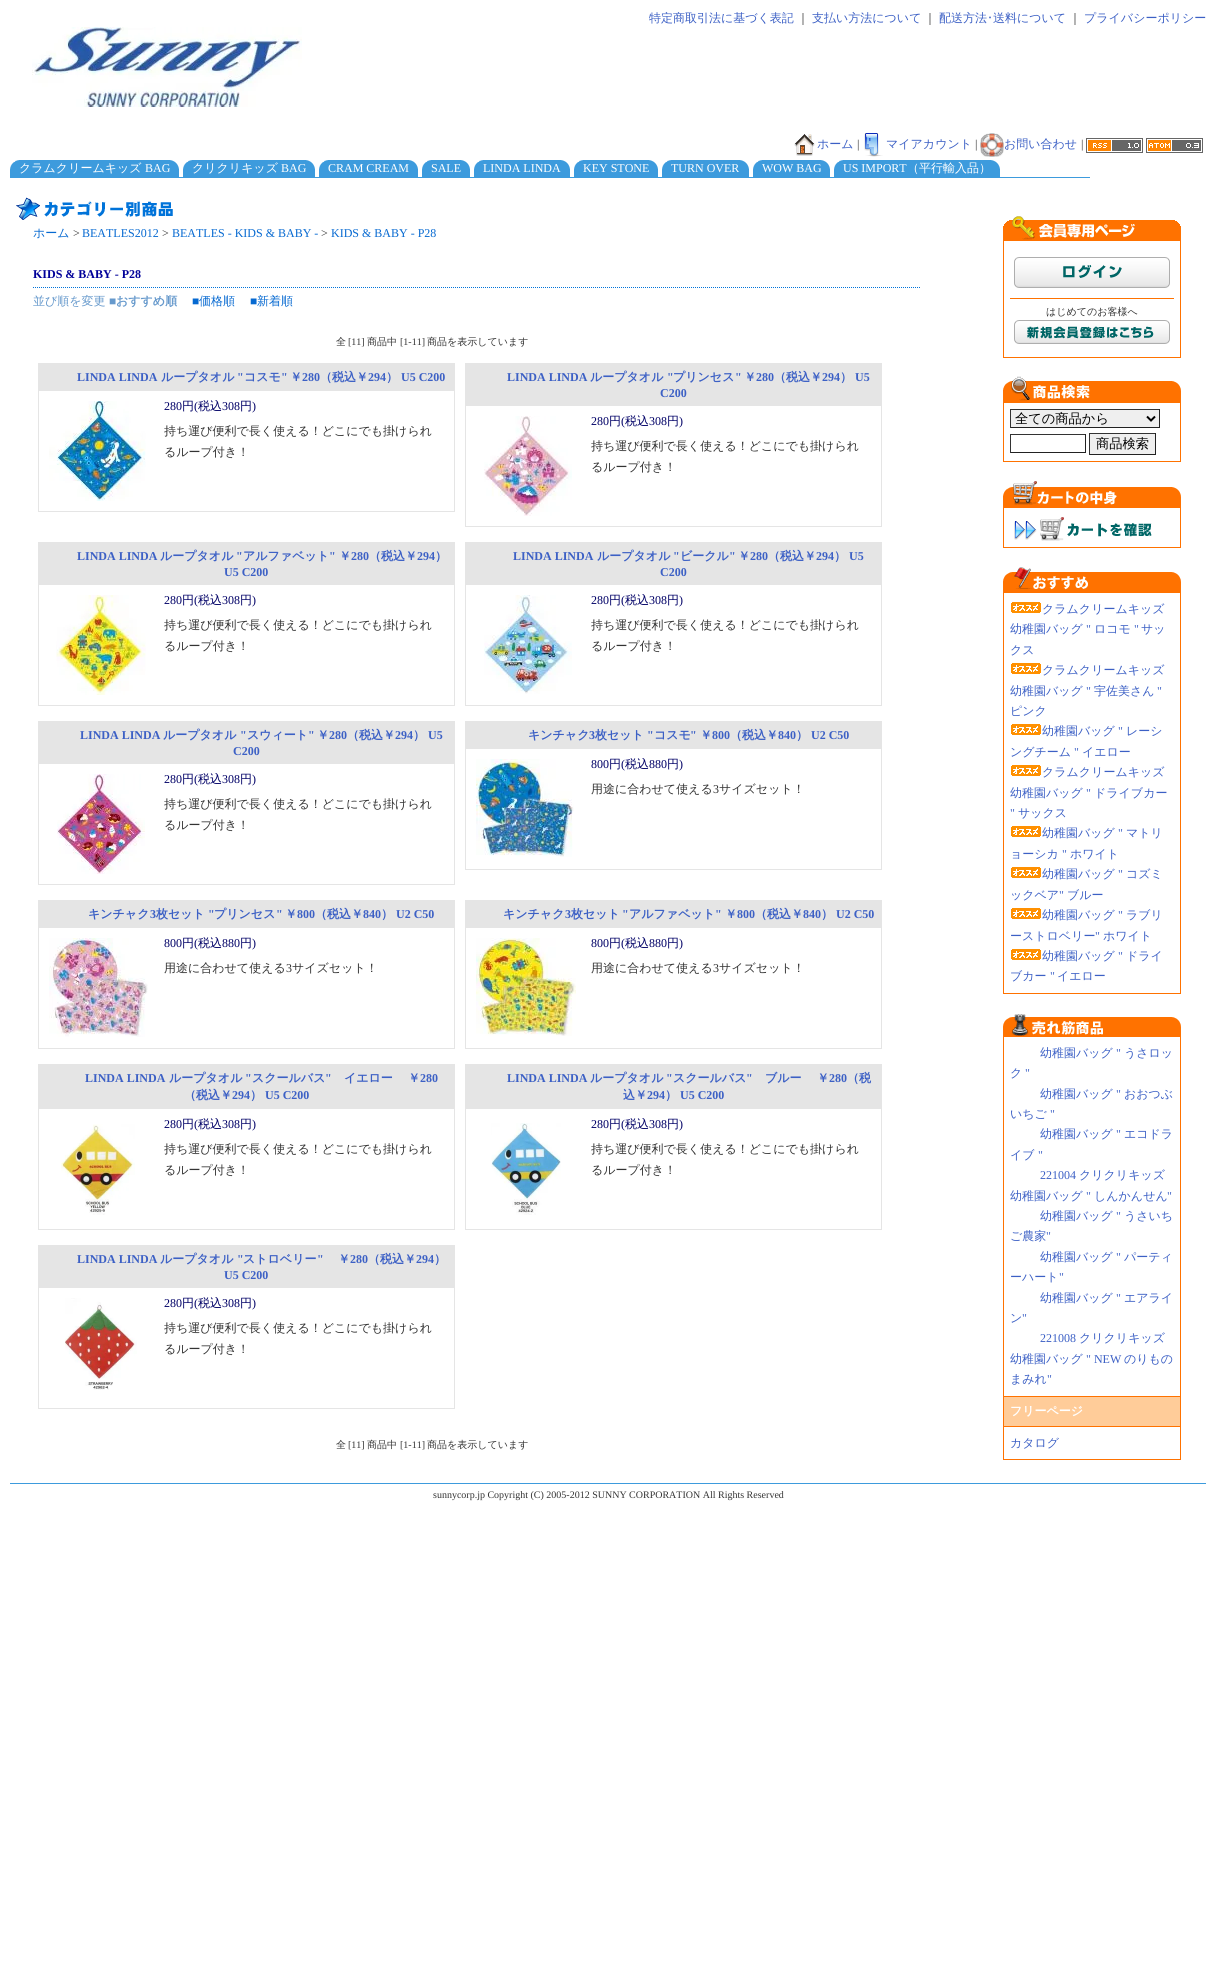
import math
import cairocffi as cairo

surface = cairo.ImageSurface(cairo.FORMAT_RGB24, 1216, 1966)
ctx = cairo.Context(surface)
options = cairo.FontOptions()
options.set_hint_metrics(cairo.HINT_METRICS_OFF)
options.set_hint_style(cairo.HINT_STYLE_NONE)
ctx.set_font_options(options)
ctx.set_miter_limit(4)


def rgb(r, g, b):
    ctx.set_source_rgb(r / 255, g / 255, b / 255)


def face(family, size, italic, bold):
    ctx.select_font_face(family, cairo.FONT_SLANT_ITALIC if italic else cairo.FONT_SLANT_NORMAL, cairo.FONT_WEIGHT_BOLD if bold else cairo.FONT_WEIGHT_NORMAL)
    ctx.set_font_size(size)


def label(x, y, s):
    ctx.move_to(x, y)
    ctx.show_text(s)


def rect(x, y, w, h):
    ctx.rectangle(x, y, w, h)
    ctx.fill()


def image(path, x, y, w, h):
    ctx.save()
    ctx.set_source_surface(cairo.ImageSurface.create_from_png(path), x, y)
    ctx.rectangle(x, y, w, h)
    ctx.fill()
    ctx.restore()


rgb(255, 255, 255)
ctx.paint()
face('WenQuanYi Zen Hei Medium', 12, 0, 0)
rgb(60, 96, 197)
label(649, 22, '特定商取引法に基づく表記')
rgb(51, 51, 51)
label(797, 22, '｜')
rgb(60, 96, 197)
label(812, 22, '支払い方法について')
rgb(51, 51, 51)
label(924, 22, '｜')
rgb(60, 96, 197)
label(939, 22, '配送方法')
face('IPAPGothic', 12, 0, 0)
label(987, 22, '･')
face('WenQuanYi Zen Hei Medium', 12, 0, 0)
label(993, 22, '送料について')
rgb(51, 51, 51)
label(1069, 22, '｜')
rgb(60, 96, 197)
label(1084, 22, 'プライバシーポリシー')
image('image0.png', 32, 27, 270, 80)
image('image1.png', 794, 134, 21, 22)
label(817, 148, 'ホーム')
face('Liberation Serif', 12, 0, 0)
rgb(51, 51, 51)
label(857, 148, '|')
image('image2.png', 864, 133, 19, 24)
face('WenQuanYi Zen Hei Medium', 12, 0, 0)
rgb(60, 96, 197)
label(886, 148, 'マイアカウント')
face('Liberation Serif', 12, 0, 0)
rgb(51, 51, 51)
label(975, 148, '|')
image('image3.png', 980, 133, 24, 24)
face('WenQuanYi Zen Hei Medium', 12, 0, 0)
rgb(60, 96, 197)
label(1004, 148, 'お問い合わせ')
face('Liberation Serif', 12, 0, 0)
rgb(51, 51, 51)
label(1081, 148, '|')
image('image4.png', 1086, 138, 57, 15)
image('image5.png', 1146, 138, 57, 15)
image('image6.png', 10, 160, 9, 17)
rgb(61, 155, 221)
rect(19, 160, 151, 17)
face('WenQuanYi Zen Hei Medium', 12, 0, 0)
rgb(255, 255, 255)
label(19, 172, 'クラムクリームキッズ')
face('Liberation Serif', 12, 0, 0)
label(145, 172, 'BAG')
image('image7.png', 170, 160, 9, 17)
image('image6.png', 183, 160, 9, 17)
rgb(61, 155, 221)
rect(192, 160, 114, 17)
face('WenQuanYi Zen Hei Medium', 12, 0, 0)
rgb(255, 255, 255)
label(192, 172, 'クリクリキッズ')
face('Liberation Serif', 12, 0, 0)
label(281, 172, 'BAG')
image('image7.png', 306, 160, 9, 17)
image('image6.png', 319, 160, 9, 17)
rgb(61, 155, 221)
rect(328, 160, 81, 17)
rgb(255, 255, 255)
label(328, 172, 'CRAM CREAM')
image('image7.png', 409, 160, 9, 17)
image('image6.png', 422, 160, 9, 17)
rgb(61, 155, 221)
rect(431, 160, 30, 17)
rgb(255, 255, 255)
label(431, 172, 'SALE')
image('image7.png', 461, 160, 9, 17)
image('image6.png', 474, 160, 9, 17)
rgb(61, 155, 221)
rect(483, 160, 78, 17)
rgb(255, 255, 255)
label(483, 172, 'LINDA LINDA')
image('image7.png', 561, 160, 9, 17)
image('image6.png', 574, 160, 9, 17)
rgb(61, 155, 221)
rect(583, 160, 66, 17)
rgb(255, 255, 255)
label(583, 172, 'KEY STONE')
image('image7.png', 649, 160, 9, 17)
image('image6.png', 662, 160, 9, 17)
rgb(61, 155, 221)
rect(671, 160, 69, 17)
rgb(255, 255, 255)
label(671, 172, 'TURN OVER')
image('image7.png', 740, 160, 9, 17)
image('image6.png', 753, 160, 9, 17)
rgb(61, 155, 221)
rect(762, 160, 59, 17)
rgb(255, 255, 255)
label(762, 172, 'WOW BAG')
image('image7.png', 821, 160, 9, 17)
image('image6.png', 834, 160, 9, 17)
rgb(61, 155, 221)
rect(843, 160, 148, 17)
rgb(255, 255, 255)
label(843, 172, 'US IMPORT')
face('WenQuanYi Zen Hei Medium', 12, 0, 0)
label(907, 172, '（平行輸入品）')
image('image7.png', 991, 160, 9, 17)
rgb(61, 155, 221)
rect(10, 177, 1080, 1)
image('image8.png', 16, 197, 157, 23)
rgb(6, 105, 209)
label(33, 237, 'ホーム')
face('Liberation Serif', 12, 0, 0)
rgb(51, 51, 51)
label(73, 237, '>')
rgb(6, 105, 209)
label(82, 237, 'BEATLES2012')
rgb(51, 51, 51)
label(162, 237, '>')
rgb(6, 105, 209)
label(172, 237, 'BEATLES - KIDS & BABY -')
rgb(51, 51, 51)
label(321, 237, '>')
rgb(6, 105, 209)
label(331, 237, 'KIDS & BABY - P28')
ctx.new_path()
ctx.move_to(33, 287.5)
ctx.line_to(920, 287.5)
rgb(0, 115, 217)
ctx.set_line_width(1)
ctx.set_dash([1, 1])
ctx.stroke()
face('Liberation Serif', 12, 0, 1)
rgb(0, 0, 153)
label(33, 278, 'KIDS & BABY - P28')
face('WenQuanYi Zen Hei Medium', 12, 0, 0)
rgb(102, 153, 204)
label(33, 305, '並び順を変更')
face('Liberation Serif', 12, 0, 1)
label(109, 305, '■')
face('WenQuanYi Zen Hei', 12, 0, 1)
label(116, 305, 'おすすめ順')
face('Liberation Serif', 12, 0, 0)
rgb(6, 105, 209)
label(192, 305, '■')
face('WenQuanYi Zen Hei Medium', 12, 0, 0)
label(199, 305, '価格順')
face('Liberation Serif', 12, 0, 0)
label(250, 305, '■')
face('WenQuanYi Zen Hei Medium', 12, 0, 0)
label(257, 305, '新着順')
face('WenQuanYi Zen Hei Medium', 10, 0, 0)
rgb(51, 51, 51)
label(336, 345, '全')
face('Liberation Serif', 10, 0, 0)
label(348, 345, '[11]')
face('WenQuanYi Zen Hei Medium', 10, 0, 0)
label(367, 345, '商品中')
face('Liberation Serif', 10, 0, 0)
label(400, 345, '[1-11]')
face('WenQuanYi Zen Hei Medium', 10, 0, 0)
label(427, 345, '商品を表示しています')
ctx.rectangle(38.5, 363.5, 416, 148)
rgb(229, 229, 229)
ctx.set_dash([])
ctx.stroke()
rect(39, 364, 415, 27)
face('Liberation Serif', 12, 0, 1)
rgb(60, 96, 197)
label(77, 381, 'LINDA LINDA')
face('WenQuanYi Zen Hei', 12, 0, 1)
label(161, 381, 'ループタオル')
face('Liberation Serif', 12, 0, 1)
label(237, 381, '"')
face('WenQuanYi Zen Hei', 12, 0, 1)
label(244, 381, 'コスモ')
face('Liberation Serif', 12, 0, 1)
label(281, 381, '"')
face('WenQuanYi Zen Hei', 12, 0, 1)
label(290, 381, '￥')
face('Liberation Serif', 12, 0, 1)
label(302, 381, '280')
face('WenQuanYi Zen Hei', 12, 0, 1)
label(320, 381, '（税込￥')
face('Liberation Serif', 12, 0, 1)
label(368, 381, '294')
face('WenQuanYi Zen Hei', 12, 0, 1)
label(386, 381, '）')
face('Liberation Serif', 12, 0, 1)
label(401, 381, 'U5 C200')
image('image9.png', 49, 401, 97, 100)
face('Liberation Serif', 12, 0, 0)
rgb(0, 0, 102)
label(164, 410, '280')
face('WenQuanYi Zen Hei Medium', 12, 0, 0)
label(182, 410, '円')
face('Liberation Serif', 12, 0, 0)
label(194, 410, '(')
face('WenQuanYi Zen Hei Medium', 12, 0, 0)
label(198, 410, '税込')
face('Liberation Serif', 12, 0, 0)
label(222, 410, '308')
face('WenQuanYi Zen Hei Medium', 12, 0, 0)
label(240, 410, '円')
face('Liberation Serif', 12, 0, 0)
label(252, 410, ')')
face('WenQuanYi Zen Hei Medium', 12, 0, 0)
rgb(51, 51, 51)
label(164, 435, '持ち運び便利で長く使える！どこにでも掛けられ')
label(164, 456, 'るループ付き！')
ctx.rectangle(465.5, 363.5, 416, 163)
rgb(229, 229, 229)
ctx.stroke()
rect(466, 364, 415, 42)
face('Liberation Serif', 12, 0, 1)
rgb(60, 96, 197)
label(507, 381, 'LINDA LINDA')
face('WenQuanYi Zen Hei', 12, 0, 1)
label(590, 381, 'ループタオル')
face('Liberation Serif', 12, 0, 1)
label(667, 381, '"')
face('WenQuanYi Zen Hei', 12, 0, 1)
label(673, 381, 'プリンセス')
face('Liberation Serif', 12, 0, 1)
label(735, 381, '"')
face('WenQuanYi Zen Hei', 12, 0, 1)
label(744, 381, '￥')
face('Liberation Serif', 12, 0, 1)
label(756, 381, '280')
face('WenQuanYi Zen Hei', 12, 0, 1)
label(774, 381, '（税込￥')
face('Liberation Serif', 12, 0, 1)
label(822, 381, '294')
face('WenQuanYi Zen Hei', 12, 0, 1)
label(840, 381, '）')
face('Liberation Serif', 12, 0, 1)
label(855, 381, 'U5')
label(660, 397, 'C200')
image('image10.png', 484, 416, 88, 100)
face('Liberation Serif', 12, 0, 0)
rgb(0, 0, 102)
label(591, 425, '280')
face('WenQuanYi Zen Hei Medium', 12, 0, 0)
label(609, 425, '円')
face('Liberation Serif', 12, 0, 0)
label(621, 425, '(')
face('WenQuanYi Zen Hei Medium', 12, 0, 0)
label(625, 425, '税込')
face('Liberation Serif', 12, 0, 0)
label(649, 425, '308')
face('WenQuanYi Zen Hei Medium', 12, 0, 0)
label(667, 425, '円')
face('Liberation Serif', 12, 0, 0)
label(679, 425, ')')
face('WenQuanYi Zen Hei Medium', 12, 0, 0)
rgb(51, 51, 51)
label(591, 450, '持ち運び便利で長く使える！どこにでも掛けられ')
label(591, 471, 'るループ付き！')
ctx.rectangle(38.5, 542.5, 416, 163)
rgb(229, 229, 229)
ctx.stroke()
rect(39, 543, 415, 42)
face('Liberation Serif', 12, 0, 1)
rgb(60, 96, 197)
label(77, 560, 'LINDA LINDA')
face('WenQuanYi Zen Hei', 12, 0, 1)
label(160, 560, 'ループタオル')
face('Liberation Serif', 12, 0, 1)
label(236, 560, '"')
face('WenQuanYi Zen Hei', 12, 0, 1)
label(243, 560, 'アルファベット')
face('Liberation Serif', 12, 0, 1)
label(329, 560, '"')
face('WenQuanYi Zen Hei', 12, 0, 1)
label(339, 560, '￥')
face('Liberation Serif', 12, 0, 1)
label(351, 560, '280')
face('WenQuanYi Zen Hei', 12, 0, 1)
label(369, 560, '（税込￥')
face('Liberation Serif', 12, 0, 1)
label(417, 560, '294')
face('WenQuanYi Zen Hei', 12, 0, 1)
label(435, 560, '）')
face('Liberation Serif', 12, 0, 1)
label(224, 576, 'U5 C200')
image('image11.png', 56, 595, 90, 100)
face('Liberation Serif', 12, 0, 0)
rgb(0, 0, 102)
label(164, 604, '280')
face('WenQuanYi Zen Hei Medium', 12, 0, 0)
label(182, 604, '円')
face('Liberation Serif', 12, 0, 0)
label(194, 604, '(')
face('WenQuanYi Zen Hei Medium', 12, 0, 0)
label(198, 604, '税込')
face('Liberation Serif', 12, 0, 0)
label(222, 604, '308')
face('WenQuanYi Zen Hei Medium', 12, 0, 0)
label(240, 604, '円')
face('Liberation Serif', 12, 0, 0)
label(252, 604, ')')
face('WenQuanYi Zen Hei Medium', 12, 0, 0)
rgb(51, 51, 51)
label(164, 629, '持ち運び便利で長く使える！どこにでも掛けられ')
label(164, 650, 'るループ付き！')
ctx.rectangle(465.5, 542.5, 416, 163)
rgb(229, 229, 229)
ctx.stroke()
rect(466, 543, 415, 42)
face('Liberation Serif', 12, 0, 1)
rgb(60, 96, 197)
label(513, 560, 'LINDA LINDA')
face('WenQuanYi Zen Hei', 12, 0, 1)
label(597, 560, 'ループタオル')
face('Liberation Serif', 12, 0, 1)
label(673, 560, '"')
face('WenQuanYi Zen Hei', 12, 0, 1)
label(680, 560, 'ビークル')
face('Liberation Serif', 12, 0, 1)
label(729, 560, '"')
face('WenQuanYi Zen Hei', 12, 0, 1)
label(738, 560, '￥')
face('Liberation Serif', 12, 0, 1)
label(750, 560, '280')
face('WenQuanYi Zen Hei', 12, 0, 1)
label(768, 560, '（税込￥')
face('Liberation Serif', 12, 0, 1)
label(816, 560, '294')
face('WenQuanYi Zen Hei', 12, 0, 1)
label(834, 560, '）')
face('Liberation Serif', 12, 0, 1)
label(849, 560, 'U5')
label(660, 576, 'C200')
image('image12.png', 484, 595, 88, 99)
face('Liberation Serif', 12, 0, 0)
rgb(0, 0, 102)
label(591, 604, '280')
face('WenQuanYi Zen Hei Medium', 12, 0, 0)
label(609, 604, '円')
face('Liberation Serif', 12, 0, 0)
label(621, 604, '(')
face('WenQuanYi Zen Hei Medium', 12, 0, 0)
label(625, 604, '税込')
face('Liberation Serif', 12, 0, 0)
label(649, 604, '308')
face('WenQuanYi Zen Hei Medium', 12, 0, 0)
label(667, 604, '円')
face('Liberation Serif', 12, 0, 0)
label(679, 604, ')')
face('WenQuanYi Zen Hei Medium', 12, 0, 0)
rgb(51, 51, 51)
label(591, 629, '持ち運び便利で長く使える！どこにでも掛けられ')
label(591, 650, 'るループ付き！')
ctx.rectangle(38.5, 721.5, 416, 163)
rgb(229, 229, 229)
ctx.stroke()
rect(39, 722, 415, 42)
face('Liberation Serif', 12, 0, 1)
rgb(60, 96, 197)
label(80, 739, 'LINDA LINDA')
face('WenQuanYi Zen Hei', 12, 0, 1)
label(163, 739, 'ループタオル')
face('Liberation Serif', 12, 0, 1)
label(240, 739, '"')
face('WenQuanYi Zen Hei', 12, 0, 1)
label(247, 739, 'スウィート')
face('Liberation Serif', 12, 0, 1)
label(308, 739, '"')
face('WenQuanYi Zen Hei', 12, 0, 1)
label(317, 739, '￥')
face('Liberation Serif', 12, 0, 1)
label(329, 739, '280')
face('WenQuanYi Zen Hei', 12, 0, 1)
label(347, 739, '（税込￥')
face('Liberation Serif', 12, 0, 1)
label(395, 739, '294')
face('WenQuanYi Zen Hei', 12, 0, 1)
label(413, 739, '）')
face('Liberation Serif', 12, 0, 1)
label(428, 739, 'U5')
label(233, 755, 'C200')
image('image13.png', 57, 774, 88, 100)
face('Liberation Serif', 12, 0, 0)
rgb(0, 0, 102)
label(164, 783, '280')
face('WenQuanYi Zen Hei Medium', 12, 0, 0)
label(182, 783, '円')
face('Liberation Serif', 12, 0, 0)
label(194, 783, '(')
face('WenQuanYi Zen Hei Medium', 12, 0, 0)
label(198, 783, '税込')
face('Liberation Serif', 12, 0, 0)
label(222, 783, '308')
face('WenQuanYi Zen Hei Medium', 12, 0, 0)
label(240, 783, '円')
face('Liberation Serif', 12, 0, 0)
label(252, 783, ')')
face('WenQuanYi Zen Hei Medium', 12, 0, 0)
rgb(51, 51, 51)
label(164, 808, '持ち運び便利で長く使える！どこにでも掛けられ')
label(164, 829, 'るループ付き！')
ctx.rectangle(465.5, 721.5, 416, 148)
rgb(229, 229, 229)
ctx.stroke()
rect(466, 722, 415, 27)
face('WenQuanYi Zen Hei', 12, 0, 1)
rgb(60, 96, 197)
label(528, 739, 'キンチャク')
face('Liberation Serif', 12, 0, 1)
label(589, 739, '3')
face('WenQuanYi Zen Hei', 12, 0, 1)
label(595, 739, '枚セット')
face('Liberation Serif', 12, 0, 1)
label(647, 739, '"')
face('WenQuanYi Zen Hei', 12, 0, 1)
label(654, 739, 'コスモ')
face('Liberation Serif', 12, 0, 1)
label(690, 739, '"')
face('WenQuanYi Zen Hei', 12, 0, 1)
label(700, 739, '￥')
face('Liberation Serif', 12, 0, 1)
label(712, 739, '800')
face('WenQuanYi Zen Hei', 12, 0, 1)
label(730, 739, '（税込￥')
face('Liberation Serif', 12, 0, 1)
label(778, 739, '840')
face('WenQuanYi Zen Hei', 12, 0, 1)
label(796, 739, '）')
face('Liberation Serif', 12, 0, 1)
label(811, 739, 'U2 C50')
image('image14.png', 476, 759, 98, 98)
face('Liberation Serif', 12, 0, 0)
rgb(0, 0, 102)
label(591, 768, '800')
face('WenQuanYi Zen Hei Medium', 12, 0, 0)
label(609, 768, '円')
face('Liberation Serif', 12, 0, 0)
label(621, 768, '(')
face('WenQuanYi Zen Hei Medium', 12, 0, 0)
label(625, 768, '税込')
face('Liberation Serif', 12, 0, 0)
label(649, 768, '880')
face('WenQuanYi Zen Hei Medium', 12, 0, 0)
label(667, 768, '円')
face('Liberation Serif', 12, 0, 0)
label(679, 768, ')')
face('WenQuanYi Zen Hei Medium', 12, 0, 0)
rgb(51, 51, 51)
label(591, 793, '用途に合わせて使える')
face('Liberation Serif', 12, 0, 0)
label(713, 793, '3')
face('WenQuanYi Zen Hei Medium', 12, 0, 0)
label(719, 793, 'サイズセット！')
ctx.rectangle(38.5, 900.5, 416, 148)
rgb(229, 229, 229)
ctx.stroke()
rect(39, 901, 415, 27)
face('WenQuanYi Zen Hei', 12, 0, 1)
rgb(60, 96, 197)
label(88, 918, 'キンチャク')
face('Liberation Serif', 12, 0, 1)
label(150, 918, '3')
face('WenQuanYi Zen Hei', 12, 0, 1)
label(156, 918, '枚セット')
face('Liberation Serif', 12, 0, 1)
label(208, 918, '"')
face('WenQuanYi Zen Hei', 12, 0, 1)
label(214, 918, 'プリンセス')
face('Liberation Serif', 12, 0, 1)
label(276, 918, '"')
face('WenQuanYi Zen Hei', 12, 0, 1)
label(285, 918, '￥')
face('Liberation Serif', 12, 0, 1)
label(297, 918, '800')
face('WenQuanYi Zen Hei', 12, 0, 1)
label(315, 918, '（税込￥')
face('Liberation Serif', 12, 0, 1)
label(363, 918, '840')
face('WenQuanYi Zen Hei', 12, 0, 1)
label(381, 918, '）')
face('Liberation Serif', 12, 0, 1)
label(396, 918, 'U2 C50')
image('image15.png', 49, 938, 99, 99)
face('Liberation Serif', 12, 0, 0)
rgb(0, 0, 102)
label(164, 947, '800')
face('WenQuanYi Zen Hei Medium', 12, 0, 0)
label(182, 947, '円')
face('Liberation Serif', 12, 0, 0)
label(194, 947, '(')
face('WenQuanYi Zen Hei Medium', 12, 0, 0)
label(198, 947, '税込')
face('Liberation Serif', 12, 0, 0)
label(222, 947, '880')
face('WenQuanYi Zen Hei Medium', 12, 0, 0)
label(240, 947, '円')
face('Liberation Serif', 12, 0, 0)
label(252, 947, ')')
face('WenQuanYi Zen Hei Medium', 12, 0, 0)
rgb(51, 51, 51)
label(164, 972, '用途に合わせて使える')
face('Liberation Serif', 12, 0, 0)
label(286, 972, '3')
face('WenQuanYi Zen Hei Medium', 12, 0, 0)
label(292, 972, 'サイズセット！')
ctx.rectangle(465.5, 900.5, 416, 148)
rgb(229, 229, 229)
ctx.stroke()
rect(466, 901, 415, 27)
face('WenQuanYi Zen Hei', 12, 0, 1)
rgb(60, 96, 197)
label(503, 918, 'キンチャク')
face('Liberation Serif', 12, 0, 1)
label(565, 918, '3')
face('WenQuanYi Zen Hei', 12, 0, 1)
label(571, 918, '枚セット')
face('Liberation Serif', 12, 0, 1)
label(622, 918, '"')
face('WenQuanYi Zen Hei', 12, 0, 1)
label(629, 918, 'アルファベット')
face('Liberation Serif', 12, 0, 1)
label(715, 918, '"')
face('WenQuanYi Zen Hei', 12, 0, 1)
label(725, 918, '￥')
face('Liberation Serif', 12, 0, 1)
label(737, 918, '800')
face('WenQuanYi Zen Hei', 12, 0, 1)
label(755, 918, '（税込￥')
face('Liberation Serif', 12, 0, 1)
label(803, 918, '840')
face('WenQuanYi Zen Hei', 12, 0, 1)
label(821, 918, '）')
face('Liberation Serif', 12, 0, 1)
label(836, 918, 'U2 C50')
image('image16.png', 476, 938, 100, 98)
face('Liberation Serif', 12, 0, 0)
rgb(0, 0, 102)
label(591, 947, '800')
face('WenQuanYi Zen Hei Medium', 12, 0, 0)
label(609, 947, '円')
face('Liberation Serif', 12, 0, 0)
label(621, 947, '(')
face('WenQuanYi Zen Hei Medium', 12, 0, 0)
label(625, 947, '税込')
face('Liberation Serif', 12, 0, 0)
label(649, 947, '880')
face('WenQuanYi Zen Hei Medium', 12, 0, 0)
label(667, 947, '円')
face('Liberation Serif', 12, 0, 0)
label(679, 947, ')')
face('WenQuanYi Zen Hei Medium', 12, 0, 0)
rgb(51, 51, 51)
label(591, 972, '用途に合わせて使える')
face('Liberation Serif', 12, 0, 0)
label(713, 972, '3')
face('WenQuanYi Zen Hei Medium', 12, 0, 0)
label(719, 972, 'サイズセット！')
ctx.rectangle(38.5, 1064.5, 416, 165)
rgb(229, 229, 229)
ctx.stroke()
rect(39, 1065, 415, 44)
face('Liberation Serif', 12, 0, 1)
rgb(60, 96, 197)
label(85, 1082, 'LINDA LINDA')
face('WenQuanYi Zen Hei', 12, 0, 1)
label(169, 1082, 'ループタオル')
face('Liberation Serif', 12, 0, 1)
label(245, 1082, '"')
face('WenQuanYi Zen Hei', 12, 0, 1)
label(252, 1082, 'スクールバス')
face('Liberation Serif', 12, 0, 1)
label(325, 1082, '"')
face('WenQuanYi Zen Hei', 12, 0, 1)
label(344, 1082, 'イエロー')
label(408, 1082, '￥')
face('Liberation Serif', 12, 0, 1)
label(420, 1082, '280')
face('WenQuanYi Zen Hei', 12, 0, 1)
label(184, 1099, '（税込￥')
face('Liberation Serif', 12, 0, 1)
label(232, 1099, '294')
face('WenQuanYi Zen Hei', 12, 0, 1)
label(250, 1099, '）')
face('Liberation Serif', 12, 0, 1)
label(265, 1099, 'U5 C200')
image('image17.png', 61, 1124, 74, 91)
face('Liberation Serif', 12, 0, 0)
rgb(0, 0, 102)
label(164, 1128, '280')
face('WenQuanYi Zen Hei Medium', 12, 0, 0)
label(182, 1128, '円')
face('Liberation Serif', 12, 0, 0)
label(194, 1128, '(')
face('WenQuanYi Zen Hei Medium', 12, 0, 0)
label(198, 1128, '税込')
face('Liberation Serif', 12, 0, 0)
label(222, 1128, '308')
face('WenQuanYi Zen Hei Medium', 12, 0, 0)
label(240, 1128, '円')
face('Liberation Serif', 12, 0, 0)
label(252, 1128, ')')
face('WenQuanYi Zen Hei Medium', 12, 0, 0)
rgb(51, 51, 51)
label(164, 1153, '持ち運び便利で長く使える！どこにでも掛けられ')
label(164, 1174, 'るループ付き！')
ctx.rectangle(465.5, 1064.5, 416, 165)
rgb(229, 229, 229)
ctx.stroke()
rect(466, 1065, 415, 44)
face('Liberation Serif', 12, 0, 1)
rgb(60, 96, 197)
label(507, 1082, 'LINDA LINDA')
face('WenQuanYi Zen Hei', 12, 0, 1)
label(590, 1082, 'ループタオル')
face('Liberation Serif', 12, 0, 1)
label(666, 1082, '"')
face('WenQuanYi Zen Hei', 12, 0, 1)
label(673, 1082, 'スクールバス')
face('Liberation Serif', 12, 0, 1)
label(746, 1082, '"')
face('WenQuanYi Zen Hei', 12, 0, 1)
label(765, 1082, 'ブルー')
label(817, 1082, '￥')
face('Liberation Serif', 12, 0, 1)
label(829, 1082, '280')
face('WenQuanYi Zen Hei', 12, 0, 1)
label(847, 1082, '（税')
label(623, 1099, '込￥')
face('Liberation Serif', 12, 0, 1)
label(647, 1099, '294')
face('WenQuanYi Zen Hei', 12, 0, 1)
label(665, 1099, '）')
face('Liberation Serif', 12, 0, 1)
label(680, 1099, 'U5 C200')
image('image18.png', 491, 1123, 70, 92)
face('Liberation Serif', 12, 0, 0)
rgb(0, 0, 102)
label(591, 1128, '280')
face('WenQuanYi Zen Hei Medium', 12, 0, 0)
label(609, 1128, '円')
face('Liberation Serif', 12, 0, 0)
label(621, 1128, '(')
face('WenQuanYi Zen Hei Medium', 12, 0, 0)
label(625, 1128, '税込')
face('Liberation Serif', 12, 0, 0)
label(649, 1128, '308')
face('WenQuanYi Zen Hei Medium', 12, 0, 0)
label(667, 1128, '円')
face('Liberation Serif', 12, 0, 0)
label(679, 1128, ')')
face('WenQuanYi Zen Hei Medium', 12, 0, 0)
rgb(51, 51, 51)
label(591, 1153, '持ち運び便利で長く使える！どこにでも掛けられ')
label(591, 1174, 'るループ付き！')
ctx.rectangle(38.5, 1245.5, 416, 163)
rgb(229, 229, 229)
ctx.stroke()
rect(39, 1246, 415, 42)
face('Liberation Serif', 12, 0, 1)
rgb(60, 96, 197)
label(77, 1263, 'LINDA LINDA')
face('WenQuanYi Zen Hei', 12, 0, 1)
label(160, 1263, 'ループタオル')
face('Liberation Serif', 12, 0, 1)
label(237, 1263, '"')
face('WenQuanYi Zen Hei', 12, 0, 1)
label(243, 1263, 'ストロベリー')
face('Liberation Serif', 12, 0, 1)
label(317, 1263, '"')
face('WenQuanYi Zen Hei', 12, 0, 1)
label(338, 1263, '￥')
face('Liberation Serif', 12, 0, 1)
label(350, 1263, '280')
face('WenQuanYi Zen Hei', 12, 0, 1)
label(368, 1263, '（税込￥')
face('Liberation Serif', 12, 0, 1)
label(416, 1263, '294')
face('WenQuanYi Zen Hei', 12, 0, 1)
label(434, 1263, '）')
face('Liberation Serif', 12, 0, 1)
label(224, 1279, 'U5 C200')
image('image19.png', 65, 1298, 72, 92)
face('Liberation Serif', 12, 0, 0)
rgb(0, 0, 102)
label(164, 1307, '280')
face('WenQuanYi Zen Hei Medium', 12, 0, 0)
label(182, 1307, '円')
face('Liberation Serif', 12, 0, 0)
label(194, 1307, '(')
face('WenQuanYi Zen Hei Medium', 12, 0, 0)
label(198, 1307, '税込')
face('Liberation Serif', 12, 0, 0)
label(222, 1307, '308')
face('WenQuanYi Zen Hei Medium', 12, 0, 0)
label(240, 1307, '円')
face('Liberation Serif', 12, 0, 0)
label(252, 1307, ')')
face('WenQuanYi Zen Hei Medium', 12, 0, 0)
rgb(51, 51, 51)
label(164, 1332, '持ち運び便利で長く使える！どこにでも掛けられ')
label(164, 1353, 'るループ付き！')
face('WenQuanYi Zen Hei Medium', 10, 0, 0)
label(336, 1448, '全')
face('Liberation Serif', 10, 0, 0)
label(348, 1448, '[11]')
face('WenQuanYi Zen Hei Medium', 10, 0, 0)
label(367, 1448, '商品中')
face('Liberation Serif', 10, 0, 0)
label(400, 1448, '[1-11]')
face('WenQuanYi Zen Hei Medium', 10, 0, 0)
label(427, 1448, '商品を表示しています')
image('image20.png', 1003, 216, 178, 24)
ctx.rectangle(1003.5, 240.5, 177, 117)
rgb(255, 114, 0)
ctx.stroke()
image('image21.png', 1014, 257, 156, 31)
rect(1010, 298, 164, 1)
rgb(51, 51, 51)
label(1046, 315, 'はじめてのお客様へ')
image('image22.png', 1014, 320, 156, 24)
image('image23.png', 1003, 376, 178, 26)
ctx.rectangle(1003.5, 402.5, 177, 59)
rgb(255, 114, 0)
ctx.stroke()
rgb(239, 239, 239)
rect(1011, 410, 148, 17)
rgb(51, 51, 51)
rect(1010, 409, 150, 1)
rgb(34, 34, 34)
rect(1159, 409, 1, 19)
rect(1010, 427, 150, 1)
rgb(51, 51, 51)
rect(1010, 409, 1, 19)
ctx.new_path()
ctx.move_to(1147, 416.5)
ctx.line_to(1151, 420.5)
ctx.line_to(1155, 416.5)
rgb(0, 0, 0)
ctx.set_line_width(2)
ctx.stroke()
face('WenQuanYi Zen Hei Medium', 13.25, 0, 0)
label(1015, 423, '全ての商品から')
rgb(51, 51, 51)
rect(1010, 434, 76, 1)
rgb(34, 34, 34)
rect(1085, 434, 1, 19)
rect(1010, 452, 76, 1)
rgb(51, 51, 51)
rect(1010, 434, 1, 19)
rgb(239, 239, 239)
rect(1090, 434, 65, 20)
rgb(51, 51, 51)
rect(1089, 433, 67, 1)
rgb(34, 34, 34)
rect(1155, 433, 1, 22)
rect(1089, 454, 67, 1)
rgb(51, 51, 51)
rect(1089, 433, 1, 22)
rgb(0, 0, 0)
label(1096, 448, '商品検索')
image('image24.png', 1003, 481, 178, 26)
ctx.rectangle(1003.5, 507.5, 177, 40)
rgb(255, 114, 0)
ctx.set_line_width(1)
ctx.stroke()
image('image25.png', 1014, 517, 138, 24)
image('image26.png', 1003, 567, 178, 25)
ctx.rectangle(1003.5, 592.5, 177, 401)
ctx.stroke()
image('image27.png', 1011, 602, 30, 11)
face('WenQuanYi Zen Hei Medium', 12, 0, 0)
rgb(60, 96, 197)
label(1042, 613, 'クラムクリームキッズ')
label(1010, 633, '幼稚園バッグ')
face('Liberation Serif', 12, 0, 0)
label(1086, 633, '"')
face('WenQuanYi Zen Hei Medium', 12, 0, 0)
label(1094, 633, 'ロコモ')
face('Liberation Serif', 12, 0, 0)
label(1134, 633, '"')
face('WenQuanYi Zen Hei Medium', 12, 0, 0)
label(1141, 633, 'サッ')
label(1010, 654, 'クス')
image('image27.png', 1011, 663, 30, 11)
label(1042, 674, 'クラムクリームキッズ')
label(1010, 695, '幼稚園バッグ')
face('Liberation Serif', 12, 0, 0)
label(1086, 695, '"')
face('WenQuanYi Zen Hei Medium', 12, 0, 0)
label(1094, 695, '宇佐美さん')
face('Liberation Serif', 12, 0, 0)
label(1157, 695, '"')
face('WenQuanYi Zen Hei Medium', 12, 0, 0)
label(1010, 715, 'ピンク')
image('image27.png', 1011, 724, 30, 11)
label(1042, 735, '幼稚園バッグ')
face('Liberation Serif', 12, 0, 0)
label(1118, 735, '"')
face('WenQuanYi Zen Hei Medium', 12, 0, 0)
label(1126, 735, 'レーシ')
label(1010, 756, 'ングチーム')
face('Liberation Serif', 12, 0, 0)
label(1074, 756, '"')
face('WenQuanYi Zen Hei Medium', 12, 0, 0)
label(1082, 756, 'イエロー')
image('image27.png', 1011, 765, 30, 11)
label(1042, 776, 'クラムクリームキッズ')
label(1010, 797, '幼稚園バッグ')
face('Liberation Serif', 12, 0, 0)
label(1086, 797, '"')
face('WenQuanYi Zen Hei Medium', 12, 0, 0)
label(1094, 797, 'ドライブカー')
face('Liberation Serif', 12, 0, 0)
label(1010, 817, '"')
face('WenQuanYi Zen Hei Medium', 12, 0, 0)
label(1018, 817, 'サックス')
image('image27.png', 1011, 826, 30, 11)
label(1042, 837, '幼稚園バッグ')
face('Liberation Serif', 12, 0, 0)
label(1118, 837, '"')
face('WenQuanYi Zen Hei Medium', 12, 0, 0)
label(1126, 837, 'マトリ')
label(1010, 858, 'ョーシカ')
face('Liberation Serif', 12, 0, 0)
label(1062, 858, '"')
face('WenQuanYi Zen Hei Medium', 12, 0, 0)
label(1070, 858, 'ホワイト')
image('image27.png', 1011, 867, 30, 11)
label(1042, 878, '幼稚園バッグ')
face('Liberation Serif', 12, 0, 0)
label(1118, 878, '"')
face('WenQuanYi Zen Hei Medium', 12, 0, 0)
label(1126, 878, 'コズミ')
label(1010, 899, 'ックベア')
face('Liberation Serif', 12, 0, 0)
label(1059, 899, '"')
face('WenQuanYi Zen Hei Medium', 12, 0, 0)
label(1067, 899, 'ブルー')
image('image27.png', 1011, 908, 30, 11)
label(1042, 919, '幼稚園バッグ')
face('Liberation Serif', 12, 0, 0)
label(1118, 919, '"')
face('WenQuanYi Zen Hei Medium', 12, 0, 0)
label(1126, 919, 'ラブリ')
label(1010, 940, 'ーストロベリー')
face('Liberation Serif', 12, 0, 0)
label(1095, 940, '"')
face('WenQuanYi Zen Hei Medium', 12, 0, 0)
label(1103, 940, 'ホワイト')
image('image27.png', 1011, 949, 30, 11)
label(1042, 960, '幼稚園バッグ')
face('Liberation Serif', 12, 0, 0)
label(1118, 960, '"')
face('WenQuanYi Zen Hei Medium', 12, 0, 0)
label(1126, 960, 'ドライ')
label(1010, 980, 'ブカー')
face('Liberation Serif', 12, 0, 0)
label(1050, 980, '"')
face('WenQuanYi Zen Hei Medium', 12, 0, 0)
label(1057, 980, 'イエロー')
image('image28.png', 1003, 1014, 178, 22)
ctx.rectangle(1003.5, 1036.5, 177, 360)
rgb(255, 114, 0)
ctx.stroke()
rgb(60, 96, 197)
label(1040, 1057, '幼稚園バッグ')
face('Liberation Serif', 12, 0, 0)
label(1116, 1057, '"')
face('WenQuanYi Zen Hei Medium', 12, 0, 0)
label(1124, 1057, 'うさロッ')
label(1010, 1077, 'ク')
face('Liberation Serif', 12, 0, 0)
label(1025, 1077, '"')
face('WenQuanYi Zen Hei Medium', 12, 0, 0)
label(1040, 1098, '幼稚園バッグ')
face('Liberation Serif', 12, 0, 0)
label(1116, 1098, '"')
face('WenQuanYi Zen Hei Medium', 12, 0, 0)
label(1124, 1098, 'おおつぶ')
label(1010, 1118, 'いちご')
face('Liberation Serif', 12, 0, 0)
label(1050, 1118, '"')
face('WenQuanYi Zen Hei Medium', 12, 0, 0)
label(1040, 1138, '幼稚園バッグ')
face('Liberation Serif', 12, 0, 0)
label(1116, 1138, '"')
face('WenQuanYi Zen Hei Medium', 12, 0, 0)
label(1124, 1138, 'エコドラ')
label(1010, 1159, 'イブ')
face('Liberation Serif', 12, 0, 0)
label(1038, 1159, '"')
label(1040, 1179, '221004')
face('WenQuanYi Zen Hei Medium', 12, 0, 0)
label(1079, 1179, 'クリクリキッズ')
label(1010, 1200, '幼稚園バッグ')
face('Liberation Serif', 12, 0, 0)
label(1086, 1200, '"')
face('WenQuanYi Zen Hei Medium', 12, 0, 0)
label(1094, 1200, 'しんかんせん')
face('Liberation Serif', 12, 0, 0)
label(1167, 1200, '"')
face('WenQuanYi Zen Hei Medium', 12, 0, 0)
label(1040, 1220, '幼稚園バッグ')
face('Liberation Serif', 12, 0, 0)
label(1116, 1220, '"')
face('WenQuanYi Zen Hei Medium', 12, 0, 0)
label(1124, 1220, 'うさいち')
label(1010, 1240, 'ご農家')
face('Liberation Serif', 12, 0, 0)
label(1046, 1240, '"')
face('WenQuanYi Zen Hei Medium', 12, 0, 0)
label(1040, 1261, '幼稚園バッグ')
face('Liberation Serif', 12, 0, 0)
label(1116, 1261, '"')
face('WenQuanYi Zen Hei Medium', 12, 0, 0)
label(1124, 1261, 'パーティ')
label(1010, 1281, 'ーハート')
face('Liberation Serif', 12, 0, 0)
label(1059, 1281, '"')
face('WenQuanYi Zen Hei Medium', 12, 0, 0)
label(1040, 1302, '幼稚園バッグ')
face('Liberation Serif', 12, 0, 0)
label(1116, 1302, '"')
face('WenQuanYi Zen Hei Medium', 12, 0, 0)
label(1124, 1302, 'エアライ')
label(1010, 1322, 'ン')
face('Liberation Serif', 12, 0, 0)
label(1022, 1322, '"')
label(1040, 1342, '221008')
face('WenQuanYi Zen Hei Medium', 12, 0, 0)
label(1079, 1342, 'クリクリキッズ')
label(1010, 1363, '幼稚園バッグ')
face('Liberation Serif', 12, 0, 0)
label(1086, 1363, '" NEW')
face('WenQuanYi Zen Hei Medium', 12, 0, 0)
label(1124, 1363, 'のりもの')
label(1010, 1383, 'まみれ')
face('Liberation Serif', 12, 0, 0)
label(1047, 1383, '"')
rgb(255, 204, 153)
rect(1004, 1397, 176, 29)
rgb(255, 114, 0)
rect(1180, 1397, 1, 29)
rect(1003, 1397, 1, 29)
face('WenQuanYi Zen Hei', 12, 0, 1)
rgb(255, 255, 255)
label(1010, 1415, 'フリーページ')
ctx.rectangle(1003.5, 1426.5, 177, 33)
rgb(255, 114, 0)
ctx.stroke()
face('WenQuanYi Zen Hei Medium', 12, 0, 0)
rgb(60, 96, 197)
label(1010, 1447, 'カタログ')
rgb(61, 155, 221)
rect(10, 1483, 1196, 1)
face('Liberation Serif', 10, 0, 0)
rgb(51, 51, 51)
label(433, 1498, 'sunnycorp.jp Copyright (C) 2005-2012 SUNNY CORPORATION All Rights Reserved')
surface.write_to_png('render.png')
